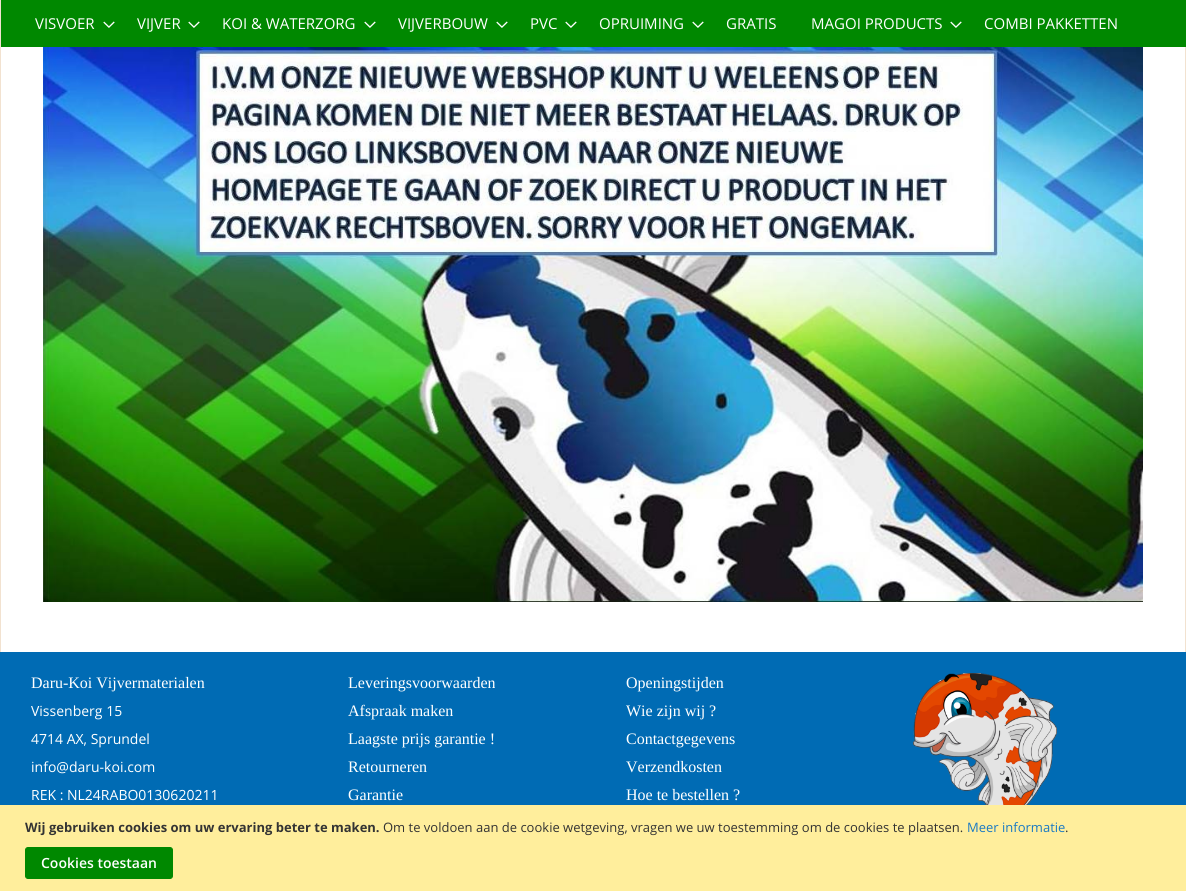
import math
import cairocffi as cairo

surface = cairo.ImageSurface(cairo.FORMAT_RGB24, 1186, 891)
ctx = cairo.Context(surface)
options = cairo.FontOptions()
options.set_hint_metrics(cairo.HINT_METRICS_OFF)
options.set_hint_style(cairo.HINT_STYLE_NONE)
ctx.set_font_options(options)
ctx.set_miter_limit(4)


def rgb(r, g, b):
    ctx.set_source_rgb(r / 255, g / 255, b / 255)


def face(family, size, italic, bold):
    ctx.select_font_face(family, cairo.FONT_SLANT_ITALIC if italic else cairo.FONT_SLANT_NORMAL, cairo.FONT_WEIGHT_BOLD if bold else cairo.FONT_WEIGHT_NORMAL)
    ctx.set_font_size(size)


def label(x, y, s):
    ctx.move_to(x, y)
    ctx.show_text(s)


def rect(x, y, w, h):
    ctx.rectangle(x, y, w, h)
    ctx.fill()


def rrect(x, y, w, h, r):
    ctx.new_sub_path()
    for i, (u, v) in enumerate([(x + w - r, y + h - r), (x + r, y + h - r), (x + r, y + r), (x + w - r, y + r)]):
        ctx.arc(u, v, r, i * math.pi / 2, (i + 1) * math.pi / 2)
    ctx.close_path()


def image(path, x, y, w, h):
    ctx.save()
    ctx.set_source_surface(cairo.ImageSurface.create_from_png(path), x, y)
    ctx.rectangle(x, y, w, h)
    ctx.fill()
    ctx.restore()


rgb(255, 255, 255)
ctx.paint()
rgb(242, 226, 208)
rect(1185, 47, 1, 605)
rect(0, 0, 1, 652)
image('image0.png', 43, 47, 1100, 555)
rgb(0, 136, 0)
rect(1, 0, 1185, 47)
face('Open Sans', 15, 0, 0)
rgb(255, 255, 255)
label(35, 29, 'VISVOER')
image('image1.png', 103, 21, 12, 7)
label(137, 29, 'VIJVER')
image('image1.png', 188, 21, 12, 7)
label(222, 29, 'KOI & WATERZORG')
image('image1.png', 364, 21, 12, 7)
label(398, 29, 'VIJVERBOUW')
image('image1.png', 496, 21, 12, 7)
label(530, 29, 'PVC')
image('image1.png', 565, 21, 12, 7)
label(599, 29, 'OPRUIMING')
image('image1.png', 692, 21, 12, 7)
label(726, 29, 'GRATIS')
label(811, 29, 'MAGOI PRODUCTS')
image('image1.png', 950, 21, 12, 7)
label(984, 29, 'COMBI PAKKETTEN')
rgb(0, 107, 180)
rect(0, 652, 1186, 153)
face('Liberation Serif', 16, 0, 0)
rgb(255, 255, 255)
label(31, 688, 'Daru-Koi Vijvermaterialen')
face('Open Sans', 14, 0, 0)
label(31, 716, 'Vissenberg 15')
label(31, 744, '4714 AX, Sprundel')
label(31, 772, 'info@daru-koi.com')
label(31, 800, 'REK : NL24RABO0130620211')
face('Liberation Serif', 16, 0, 0)
label(348, 688, 'Leveringsvoorwaarden')
label(348, 716, 'Afspraak maken')
label(348, 744, 'Laagste prijs garantie !')
label(348, 772, 'Retourneren')
label(348, 800, 'Garantie')
label(626, 688, 'Openingstijden')
label(626, 716, 'Wie zijn wij ?')
label(626, 744, 'Contactgegevens')
label(626, 772, 'Verzendkosten')
label(626, 800, 'Hoe te bestellen ?')
image('image2.png', 913, 673, 144, 132)
rgb(255, 238, 156)
rect(0, 805, 1186, 86)
face('Open Sans', 13, 0, 1)
rgb(51, 51, 51)
label(25, 832, 'Wij gebruiken cookies om uw ervaring beter te maken.')
face('Open Sans', 13, 0, 0)
label(383, 832, 'Om te voldoen aan de cookie wetgeving, vragen we uw toestemming om de cookies te plaatsen.')
rgb(25, 121, 195)
label(967, 832, 'Meer informatie')
rgb(51, 51, 51)
label(1065, 832, '.')
rgb(0, 136, 0)
rrect(25.5, 847.5, 147, 31, 2.5)
ctx.fill_preserve()
ctx.set_line_width(1)
ctx.stroke()
face('Open Sans SemiBold', 14, 0, 0)
rgb(255, 255, 255)
label(41, 868, 'Cookies toestaan')
surface.write_to_png('render.png')
